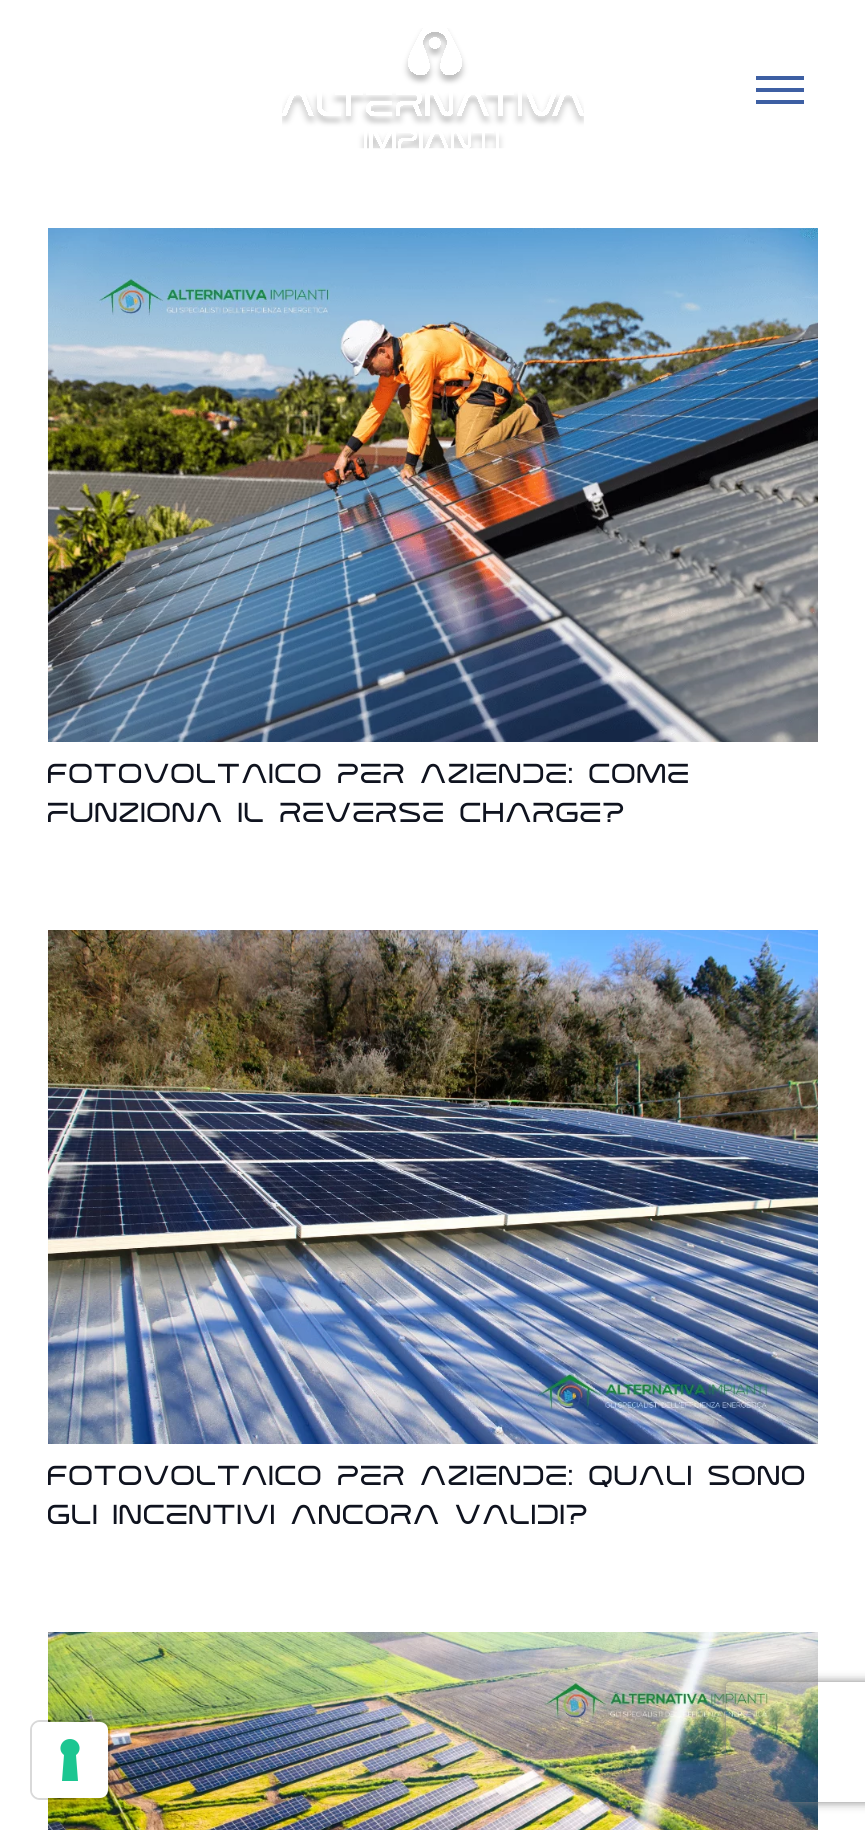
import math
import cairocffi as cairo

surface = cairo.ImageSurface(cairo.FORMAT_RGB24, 865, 1830)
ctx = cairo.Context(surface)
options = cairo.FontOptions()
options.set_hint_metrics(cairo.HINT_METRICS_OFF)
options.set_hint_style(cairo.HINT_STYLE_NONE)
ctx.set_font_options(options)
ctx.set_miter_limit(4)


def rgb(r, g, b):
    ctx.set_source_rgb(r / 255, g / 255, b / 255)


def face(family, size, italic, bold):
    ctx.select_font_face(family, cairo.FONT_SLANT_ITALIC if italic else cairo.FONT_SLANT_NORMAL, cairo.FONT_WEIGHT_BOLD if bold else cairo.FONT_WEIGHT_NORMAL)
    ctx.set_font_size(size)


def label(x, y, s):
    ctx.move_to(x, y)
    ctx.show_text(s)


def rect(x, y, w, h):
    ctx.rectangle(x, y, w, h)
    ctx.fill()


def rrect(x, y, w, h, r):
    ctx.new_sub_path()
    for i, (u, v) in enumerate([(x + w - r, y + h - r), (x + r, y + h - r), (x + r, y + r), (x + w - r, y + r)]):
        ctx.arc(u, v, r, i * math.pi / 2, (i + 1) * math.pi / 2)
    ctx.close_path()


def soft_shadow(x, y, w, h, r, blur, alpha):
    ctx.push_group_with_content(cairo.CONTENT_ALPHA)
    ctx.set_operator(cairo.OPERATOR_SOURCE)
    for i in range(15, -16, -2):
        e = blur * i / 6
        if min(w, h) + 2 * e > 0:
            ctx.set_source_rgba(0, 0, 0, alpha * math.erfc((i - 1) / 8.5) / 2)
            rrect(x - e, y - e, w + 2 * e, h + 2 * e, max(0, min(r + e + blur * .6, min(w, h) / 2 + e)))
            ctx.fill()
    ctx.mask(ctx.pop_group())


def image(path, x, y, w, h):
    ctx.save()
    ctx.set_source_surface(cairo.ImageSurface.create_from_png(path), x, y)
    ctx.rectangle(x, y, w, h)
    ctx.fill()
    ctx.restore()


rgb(255, 255, 255)
ctx.paint()
image('image0.png', 282, 28, 302, 121)
rgb(61, 95, 163)
rect(756, 88, 48, 4)
rect(756, 76, 48, 4)
rect(756, 100, 48, 4)
image('image1.png', 48, 228, 770, 514)
face('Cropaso', 32, 0, 0)
rgb(15, 19, 31)
label(48, 783, 'Fotovoltaico per aziende: come')
label(48, 822, 'funziona il reverse charge?')
image('image2.png', 48, 930, 770, 514)
label(48, 1485, 'Fotovoltaico per aziende: quali sono')
label(48, 1524, 'gli incentivi ancora validi?')
image('image3.png', 48, 1632, 770, 198)
rrect(31, 1721, 78, 78, 9)
ctx.set_source_rgba(0, 0, 0, 0.15)
ctx.stroke()
rgb(255, 255, 255)
rrect(32, 1722, 76, 76, 8)
ctx.fill()
rgb(28, 198, 145)
ctx.set_fill_rule(cairo.FILL_RULE_EVEN_ODD)
ctx.new_path()
ctx.move_to(70, 1739)
ctx.curve_to(79, 1739, 83, 1750, 76, 1755)
ctx.line_to(78, 1781)
ctx.line_to(62, 1781)
ctx.line_to(64, 1755)
ctx.curve_to(57, 1750, 61, 1739, 70, 1739)
ctx.close_path()
ctx.fill()
ctx.save()
ctx.new_path()
ctx.move_to(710, 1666)
ctx.line_to(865, 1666)
ctx.line_to(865, 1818)
ctx.line_to(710, 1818)
ctx.close_path()
ctx.move_to(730, 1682)
ctx.line_to(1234, 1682)
ctx.curve_to(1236, 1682, 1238, 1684, 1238, 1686)
ctx.line_to(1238, 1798)
ctx.curve_to(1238, 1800, 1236, 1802, 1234, 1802)
ctx.line_to(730, 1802)
ctx.curve_to(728, 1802, 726, 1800, 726, 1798)
ctx.line_to(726, 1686)
ctx.curve_to(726, 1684, 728, 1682, 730, 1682)
ctx.close_path()
ctx.clip()
rgb(128, 128, 128)
soft_shadow(726, 1682, 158, 120, 4, 5, 1)
ctx.restore()
surface.write_to_png('render.png')
